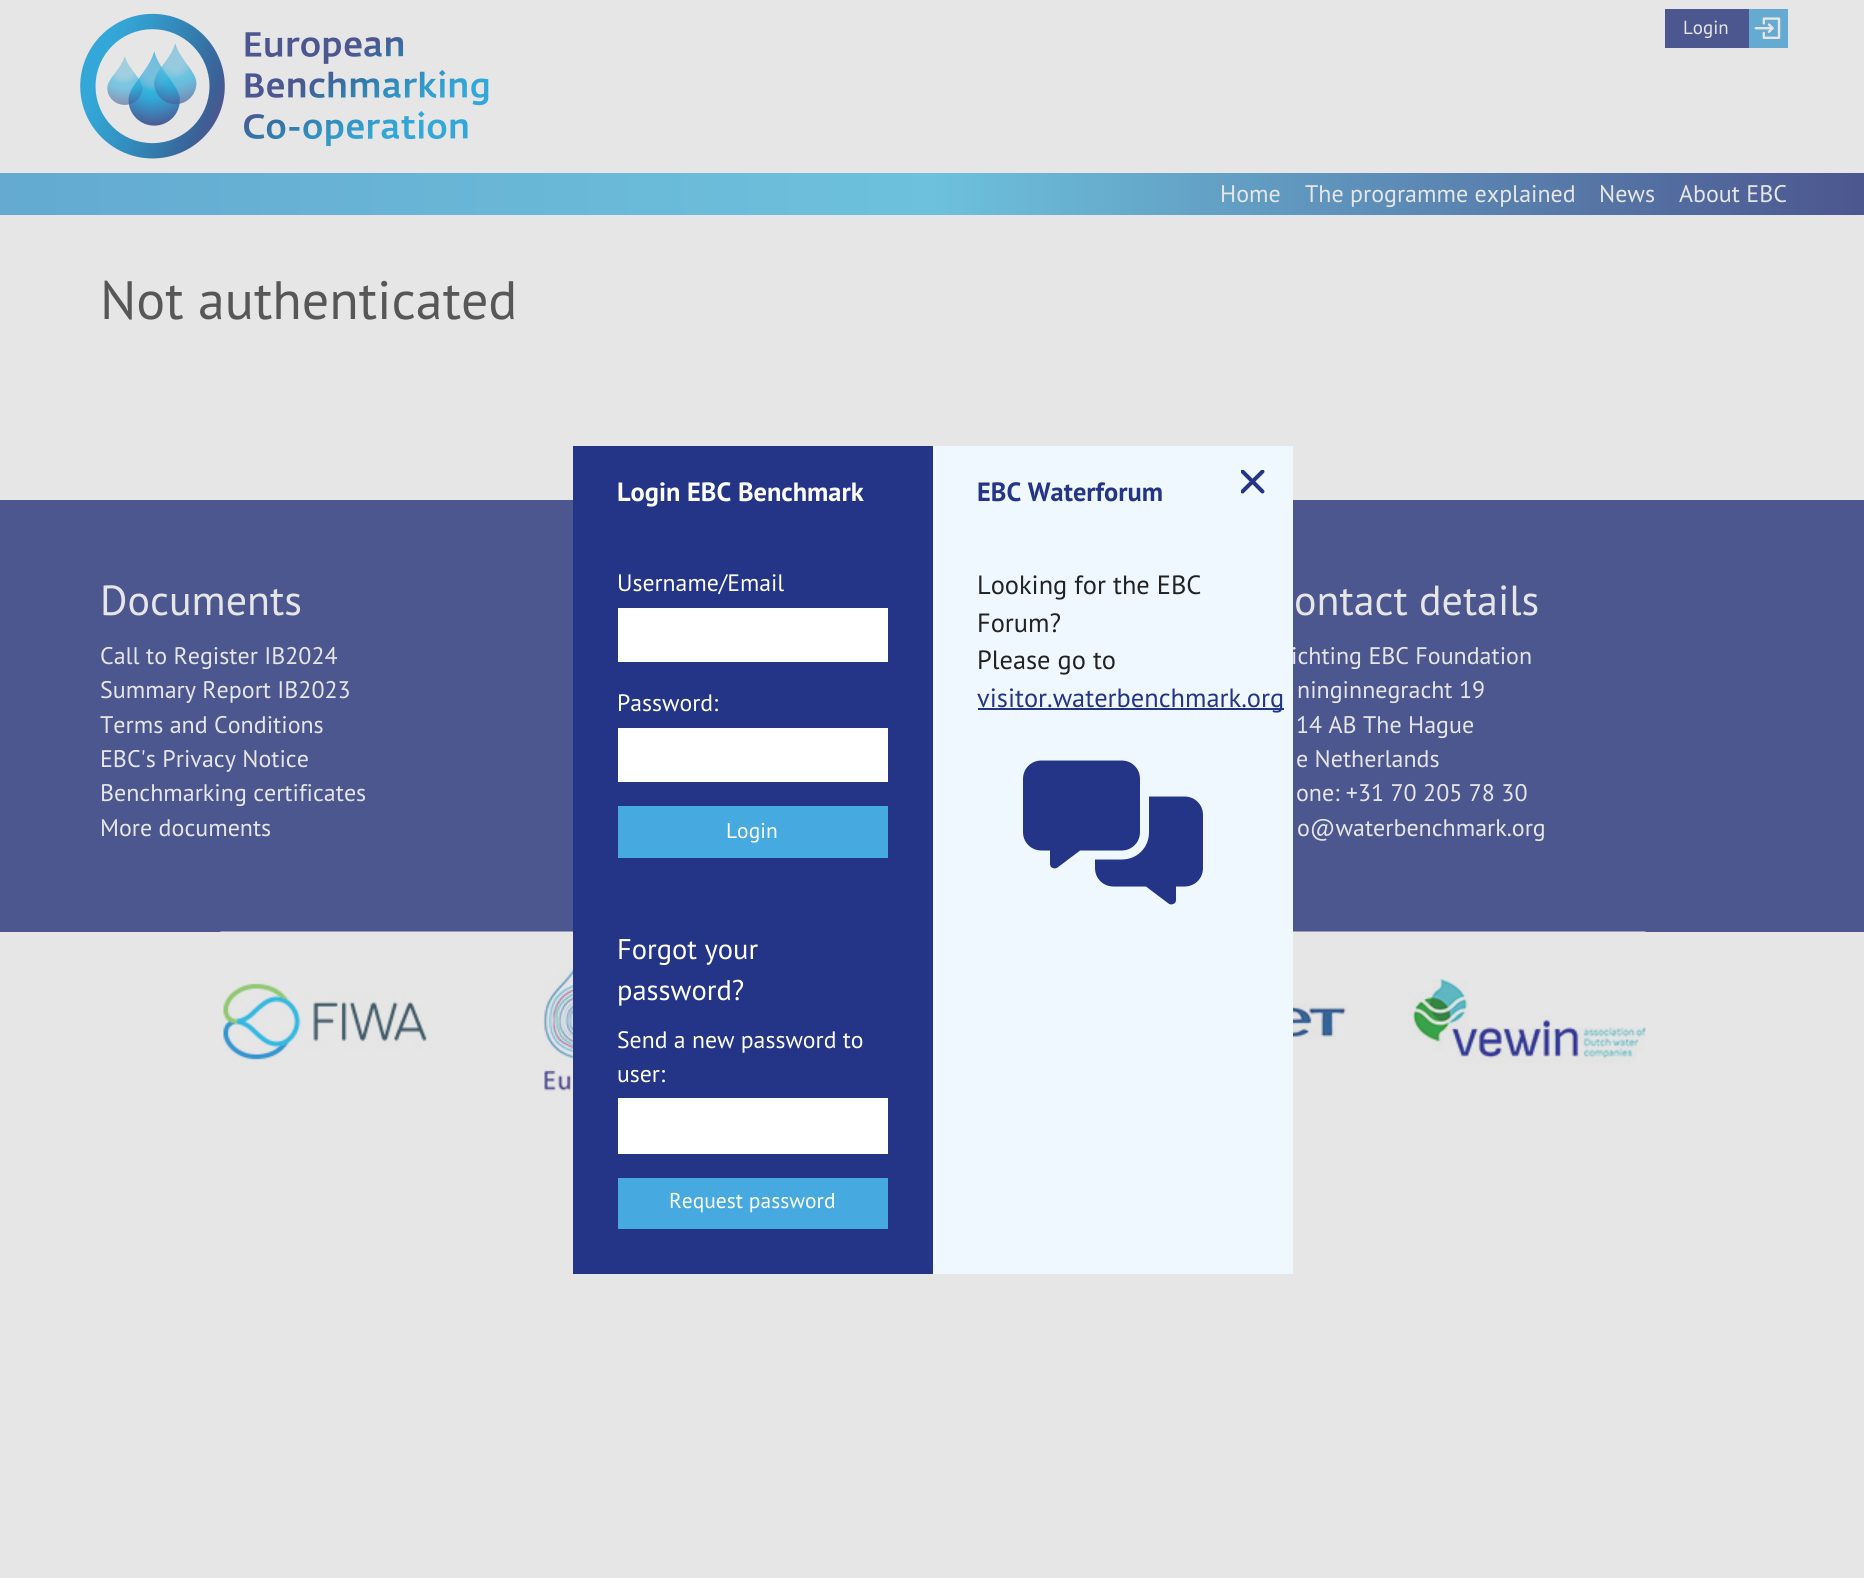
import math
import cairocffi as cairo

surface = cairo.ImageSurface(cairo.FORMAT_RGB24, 1864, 1578)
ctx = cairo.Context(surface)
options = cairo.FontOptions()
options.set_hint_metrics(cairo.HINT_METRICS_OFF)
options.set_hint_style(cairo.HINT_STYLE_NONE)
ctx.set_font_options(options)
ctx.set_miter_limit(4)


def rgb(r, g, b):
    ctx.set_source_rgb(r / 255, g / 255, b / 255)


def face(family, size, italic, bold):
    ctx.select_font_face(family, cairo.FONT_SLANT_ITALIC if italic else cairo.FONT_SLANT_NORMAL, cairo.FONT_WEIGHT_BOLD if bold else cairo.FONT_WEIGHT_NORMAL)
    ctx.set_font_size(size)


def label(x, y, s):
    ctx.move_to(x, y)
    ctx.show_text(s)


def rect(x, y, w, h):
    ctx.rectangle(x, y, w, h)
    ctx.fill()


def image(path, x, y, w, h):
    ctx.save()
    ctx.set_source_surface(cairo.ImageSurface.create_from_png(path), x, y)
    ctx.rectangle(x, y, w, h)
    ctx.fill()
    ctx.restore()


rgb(230, 230, 230)
ctx.paint()
rgb(76, 86, 143)
rect(1665, 9, 84, 39)
image('image0.png', 1749, 9, 39, 39)
face('PT Sans', 19, 0, 0)
rgb(230, 230, 230)
label(1683, 34, 'Login')
image('image1.png', 80, 13, 409, 146)
gradient = cairo.LinearGradient(0, 194, 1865, 193)
gradient.add_color_stop_rgba(0, 0.392, 0.667, 0.82, 1)
gradient.add_color_stop_rgba(0.5, 0.427, 0.757, 0.863, 1)
gradient.add_color_stop_rgba(1, 0.298, 0.337, 0.561, 1)
ctx.set_source(gradient)
rect(0, 173, 1864, 42)
face('PT Sans', 24, 0, 0)
rgb(230, 230, 230)
label(1220, 202, 'Home')
label(1305, 202, 'The programme explained')
label(1599, 202, 'News')
label(1679, 202, 'About EBC')
face('PT Sans', 54, 0, 0)
rgb(87, 87, 87)
label(100, 319, 'Not authenticated')
rgb(76, 86, 143)
rect(0, 500, 1864, 432)
image('image4.png', 220, 931, 1426, 164)
rgb(36, 52, 134)
rect(573, 446, 360, 828)
face('PT Sans', 26.4, 0, 1)
rgb(255, 255, 255)
label(617, 501, 'Login EBC Benchmark')
face('PT Sans', 24, 0, 0)
rgb(230, 230, 230)
label(1291, 664, 'ichting EBC Foundation')
rgb(240, 248, 255)
rect(933, 446, 360, 828)
face('PT Sans', 26.4, 0, 1)
rgb(36, 52, 134)
label(977, 501, 'EBC Waterforum')
image('image2.png', 1241, 470, 24, 24)
face('PT Sans', 23.75, 0, 0)
rgb(255, 255, 255)
label(617, 591, 'Username/Email')
rect(618, 608, 270, 54)
label(617, 711, 'Password:')
rect(618, 728, 270, 54)
rgb(70, 170, 225)
rect(618, 806, 270, 52)
face('PT Sans', 21.5, 0, 0)
rgb(255, 255, 255)
label(726, 838, 'Login')
face('PT Sans', 28.5, 0, 0)
label(617, 959, 'Forgot your')
label(617, 1000, 'password?')
face('PT Sans', 23.75, 0, 0)
label(617, 1048, 'Send a new password to')
label(617, 1082, 'user:')
rect(618, 1098, 270, 56)
rgb(70, 170, 225)
rect(618, 1178, 270, 51)
face('PT Sans', 21.5, 0, 0)
rgb(255, 255, 255)
label(669, 1208, 'Request password')
face('PT Sans', 26.4, 0, 0)
rgb(34, 34, 34)
label(977, 594, 'Looking for the EBC')
label(977, 632, 'Forum?')
label(977, 669, 'Please go to')
rgb(36, 52, 134)
rect(978, 708, 306, 2)
label(977, 707, 'visitor.waterbenchmark.org')
image('image3.png', 1023, 760, 180, 145)
face('PT Sans', 42, 0, 0)
rgb(230, 230, 230)
label(100, 615, 'Documents')
face('PT Sans', 24, 0, 0)
label(100, 664, 'Call to Register IB2024')
label(100, 698, 'Summary Report IB2023')
label(100, 733, 'Terms and Conditions')
label(100, 767, 'EBC\'s Privacy Notice')
label(100, 801, 'Benchmarking certificates')
label(100, 836, 'More documents')
face('PT Sans', 42, 0, 0)
label(1294, 615, 'ontact details')
face('PT Sans', 24, 0, 0)
label(1297, 698, 'ninginnegracht 19')
label(1296, 733, '14 AB The Hague')
label(1296, 767, 'e Netherlands')
label(1296, 801, 'one: +31 70 205 78 30')
label(1297, 836, 'o@waterbenchmark.org')
surface.write_to_png('render.png')
